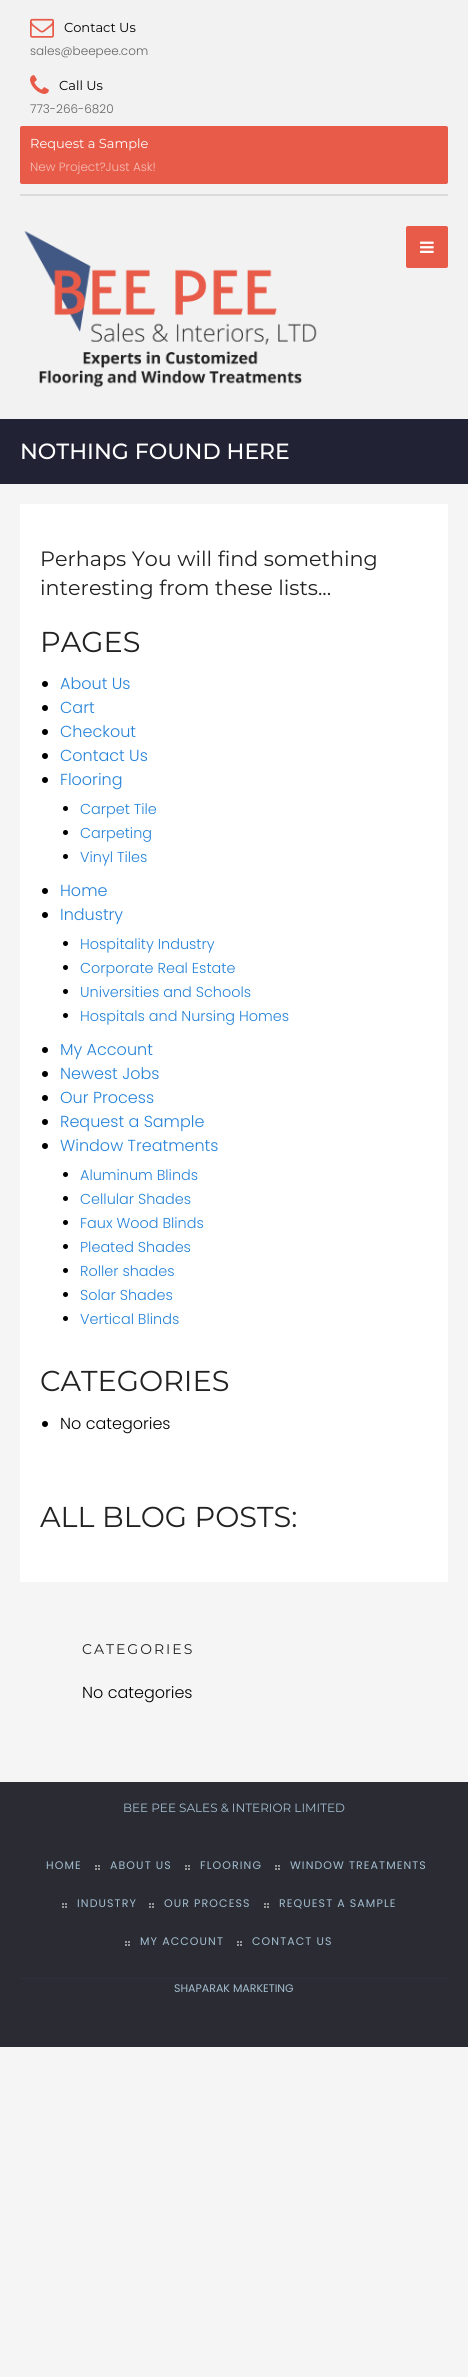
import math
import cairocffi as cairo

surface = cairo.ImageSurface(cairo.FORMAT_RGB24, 468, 2377)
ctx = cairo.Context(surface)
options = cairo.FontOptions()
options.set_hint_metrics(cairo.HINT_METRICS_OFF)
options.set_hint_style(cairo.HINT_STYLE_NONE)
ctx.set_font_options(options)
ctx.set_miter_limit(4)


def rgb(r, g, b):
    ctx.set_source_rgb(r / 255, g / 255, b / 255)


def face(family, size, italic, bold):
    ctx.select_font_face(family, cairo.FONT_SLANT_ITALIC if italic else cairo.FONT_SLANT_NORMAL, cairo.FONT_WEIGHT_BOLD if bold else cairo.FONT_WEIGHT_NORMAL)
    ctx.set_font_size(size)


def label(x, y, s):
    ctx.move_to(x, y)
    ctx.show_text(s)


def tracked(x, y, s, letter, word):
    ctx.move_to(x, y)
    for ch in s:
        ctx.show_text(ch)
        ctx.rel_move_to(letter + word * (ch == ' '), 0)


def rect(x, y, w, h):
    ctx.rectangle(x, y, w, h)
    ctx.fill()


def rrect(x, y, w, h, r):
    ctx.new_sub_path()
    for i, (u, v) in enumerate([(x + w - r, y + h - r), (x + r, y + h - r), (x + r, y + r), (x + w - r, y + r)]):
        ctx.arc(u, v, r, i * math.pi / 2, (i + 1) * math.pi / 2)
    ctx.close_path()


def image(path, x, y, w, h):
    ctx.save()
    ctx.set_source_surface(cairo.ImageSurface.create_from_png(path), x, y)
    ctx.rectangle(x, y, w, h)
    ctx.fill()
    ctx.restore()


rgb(245, 245, 245)
ctx.paint()
rgb(242, 242, 242)
rect(0, 0, 468, 419)
rgb(218, 218, 218)
rect(20, 194, 428, 2)
image('image0.png', 30, 18, 24, 20)
face('Montserrat', 13, 0, 0)
rgb(0, 0, 0)
label(64, 32, 'Contact Us')
face('Poppins Light', 12, 0, 0)
rgb(97, 97, 97)
label(30, 55, 'sales@beepee.com')
image('image1.png', 30, 75, 19, 19)
face('Montserrat', 13, 0, 0)
rgb(0, 0, 0)
label(59, 90, 'Call Us')
face('Poppins Light', 12, 0, 0)
rgb(97, 97, 97)
label(30, 113, '773-266-6820')
rgb(232, 91, 73)
rrect(20, 126, 428, 58, 2)
ctx.fill()
face('Montserrat', 13, 0, 0)
rgb(255, 255, 255)
label(30, 148, 'Request a Sample')
face('Poppins Light', 12, 0, 0)
rgb(246, 189, 182)
label(30, 171, 'New Project?Just Ask!')
image('image2.png', 24, 230, 293, 158)
rgb(232, 91, 73)
rrect(406, 226, 42, 42, 2)
ctx.fill()
image('image3.png', 420, 241, 14, 12)
rgb(33, 34, 51)
rect(0, 419, 468, 65)
face('Montserrat Medium', 22, 0, 0)
rgb(255, 255, 255)
label(20, 459, 'NOTHING FOUND HERE')
rect(20, 504, 428, 1078)
face('Montserrat', 20.75, 0, 0)
rgb(34, 34, 34)
label(40, 566, 'Perhaps You will find something')
label(40, 595, 'interesting from these lists...')
face('Montserrat', 28.75, 0, 0)
label(40, 652, 'PAGES')
rgb(0, 0, 0)
ctx.new_path()
ctx.arc(45, 684, 3, 0, 2 * math.pi)
ctx.fill()
face('Poppins Light', 16, 0, 0)
rgb(37, 130, 216)
label(60, 689, 'About Us')
rgb(0, 0, 0)
ctx.new_path()
ctx.arc(45, 708, 3, 0, 2 * math.pi)
ctx.fill()
rgb(37, 130, 216)
label(60, 713, 'Cart')
rgb(0, 0, 0)
ctx.new_path()
ctx.arc(45, 732, 3, 0, 2 * math.pi)
ctx.fill()
rgb(37, 130, 216)
label(60, 737, 'Checkout')
rgb(0, 0, 0)
ctx.new_path()
ctx.arc(45, 756, 3, 0, 2 * math.pi)
ctx.fill()
rgb(37, 130, 216)
label(60, 761, 'Contact Us')
rgb(0, 0, 0)
ctx.new_path()
ctx.arc(45, 780, 3, 0, 2 * math.pi)
ctx.fill()
rgb(37, 130, 216)
label(60, 785, 'Flooring')
rgb(0, 0, 0)
ctx.new_path()
ctx.arc(65.5, 808.5, 2.5, 0, 2 * math.pi)
ctx.fill()
face('Poppins Light', 14.4, 0, 0)
rgb(37, 130, 216)
label(80, 814, 'Carpet Tile')
rgb(0, 0, 0)
ctx.new_path()
ctx.arc(65.5, 832.5, 2.5, 0, 2 * math.pi)
ctx.fill()
rgb(37, 130, 216)
label(80, 838, 'Carpeting')
rgb(0, 0, 0)
ctx.new_path()
ctx.arc(65.5, 856.5, 2.5, 0, 2 * math.pi)
ctx.fill()
rgb(37, 130, 216)
label(80, 862, 'Vinyl Tiles')
rgb(0, 0, 0)
ctx.new_path()
ctx.arc(45, 891, 3, 0, 2 * math.pi)
ctx.fill()
face('Poppins Light', 16, 0, 0)
rgb(37, 130, 216)
label(60, 896, 'Home')
rgb(0, 0, 0)
ctx.new_path()
ctx.arc(45, 915, 3, 0, 2 * math.pi)
ctx.fill()
rgb(37, 130, 216)
label(60, 920, 'Industry')
rgb(0, 0, 0)
ctx.new_path()
ctx.arc(65.5, 943.5, 2.5, 0, 2 * math.pi)
ctx.fill()
face('Poppins Light', 14.4, 0, 0)
rgb(37, 130, 216)
label(80, 949, 'Hospitality Industry')
rgb(0, 0, 0)
ctx.new_path()
ctx.arc(65.5, 967.5, 2.5, 0, 2 * math.pi)
ctx.fill()
rgb(37, 130, 216)
label(80, 973, 'Corporate Real Estate')
rgb(0, 0, 0)
ctx.new_path()
ctx.arc(65.5, 991.5, 2.5, 0, 2 * math.pi)
ctx.fill()
rgb(37, 130, 216)
label(80, 997, 'Universities and Schools')
rgb(0, 0, 0)
ctx.new_path()
ctx.arc(65.5, 1015.5, 2.5, 0, 2 * math.pi)
ctx.fill()
rgb(37, 130, 216)
label(80, 1021, 'Hospitals and Nursing Homes')
rgb(0, 0, 0)
ctx.new_path()
ctx.arc(45, 1050, 3, 0, 2 * math.pi)
ctx.fill()
face('Poppins Light', 16, 0, 0)
rgb(37, 130, 216)
label(60, 1055, 'My Account')
rgb(0, 0, 0)
ctx.new_path()
ctx.arc(45, 1074, 3, 0, 2 * math.pi)
ctx.fill()
rgb(37, 130, 216)
label(60, 1079, 'Newest Jobs')
rgb(0, 0, 0)
ctx.new_path()
ctx.arc(45, 1098, 3, 0, 2 * math.pi)
ctx.fill()
rgb(37, 130, 216)
label(60, 1103, 'Our Process')
rgb(0, 0, 0)
ctx.new_path()
ctx.arc(45, 1122, 3, 0, 2 * math.pi)
ctx.fill()
rgb(37, 130, 216)
label(60, 1127, 'Request a Sample')
rgb(0, 0, 0)
ctx.new_path()
ctx.arc(45, 1146, 3, 0, 2 * math.pi)
ctx.fill()
rgb(37, 130, 216)
label(60, 1151, 'Window Treatments')
rgb(0, 0, 0)
ctx.new_path()
ctx.arc(65.5, 1174.5, 2.5, 0, 2 * math.pi)
ctx.fill()
face('Poppins Light', 14.4, 0, 0)
rgb(37, 130, 216)
label(80, 1180, 'Aluminum Blinds')
rgb(0, 0, 0)
ctx.new_path()
ctx.arc(65.5, 1198.5, 2.5, 0, 2 * math.pi)
ctx.fill()
rgb(37, 130, 216)
label(80, 1204, 'Cellular Shades')
rgb(0, 0, 0)
ctx.new_path()
ctx.arc(65.5, 1222.5, 2.5, 0, 2 * math.pi)
ctx.fill()
rgb(37, 130, 216)
label(80, 1228, 'Faux Wood Blinds')
rgb(0, 0, 0)
ctx.new_path()
ctx.arc(65.5, 1246.5, 2.5, 0, 2 * math.pi)
ctx.fill()
rgb(37, 130, 216)
label(80, 1252, 'Pleated Shades')
rgb(0, 0, 0)
ctx.new_path()
ctx.arc(65.5, 1270.5, 2.5, 0, 2 * math.pi)
ctx.fill()
rgb(37, 130, 216)
label(80, 1276, 'Roller shades')
rgb(0, 0, 0)
ctx.new_path()
ctx.arc(65.5, 1294.5, 2.5, 0, 2 * math.pi)
ctx.fill()
rgb(37, 130, 216)
label(80, 1300, 'Solar Shades')
rgb(0, 0, 0)
ctx.new_path()
ctx.arc(65.5, 1318.5, 2.5, 0, 2 * math.pi)
ctx.fill()
rgb(37, 130, 216)
label(80, 1324, 'Vertical Blinds')
face('Montserrat', 28.75, 0, 0)
rgb(34, 34, 34)
label(40, 1391, 'CATEGORIES')
rgb(0, 0, 0)
ctx.new_path()
ctx.arc(45, 1424, 3, 0, 2 * math.pi)
ctx.fill()
face('Poppins Light', 16, 0, 0)
label(60, 1429, 'No categories')
face('Montserrat', 28.75, 0, 0)
rgb(34, 34, 34)
label(40, 1527, 'ALL BLOG POSTS:')
face('Montserrat', 14, 0, 0)
tracked(82, 1654, 'CATEGORIES', 2, 0)
face('Poppins Light', 16, 0, 0)
rgb(0, 0, 0)
label(82, 1698, 'No categories')
rgb(43, 44, 51)
rect(0, 1782, 468, 265)
face('Montserrat', 12, 0, 0)
rgb(163, 190, 209)
label(123, 1812, 'BEE PEE SALES & INTERIOR LIMITED')
face('Poppins', 11, 0, 0)
tracked(46, 1869, 'HOME', 1.1, 0)
image('image4.png', 95, 1865, 5, 5)
tracked(110, 1869, 'ABOUT US', 1.1, 0)
image('image4.png', 185, 1865, 5, 5)
tracked(200, 1869, 'FLOORING', 1.1, 0)
image('image4.png', 275, 1865, 5, 5)
tracked(290, 1869, 'WINDOW TREATMENTS', 1.1, 0)
image('image4.png', 62, 1903, 5, 5)
tracked(77, 1907, 'INDUSTRY', 1.1, 0)
image('image4.png', 149, 1903, 5, 5)
tracked(164, 1907, 'OUR PROCESS', 1.1, 0)
image('image4.png', 264, 1903, 5, 5)
tracked(279, 1907, 'REQUEST A SAMPLE', 1.1, 0)
image('image4.png', 125, 1941, 5, 5)
tracked(140, 1945, 'MY ACCOUNT', 1.1, 0)
image('image4.png', 237, 1941, 5, 5)
tracked(252, 1945, 'CONTACT US', 1.1, 0)
rgb(46, 48, 58)
rect(20, 1978, 428, 1)
rgb(163, 190, 209)
label(174, 1992, 'SHAPARAK MARKETING')
surface.write_to_png('render.png')
